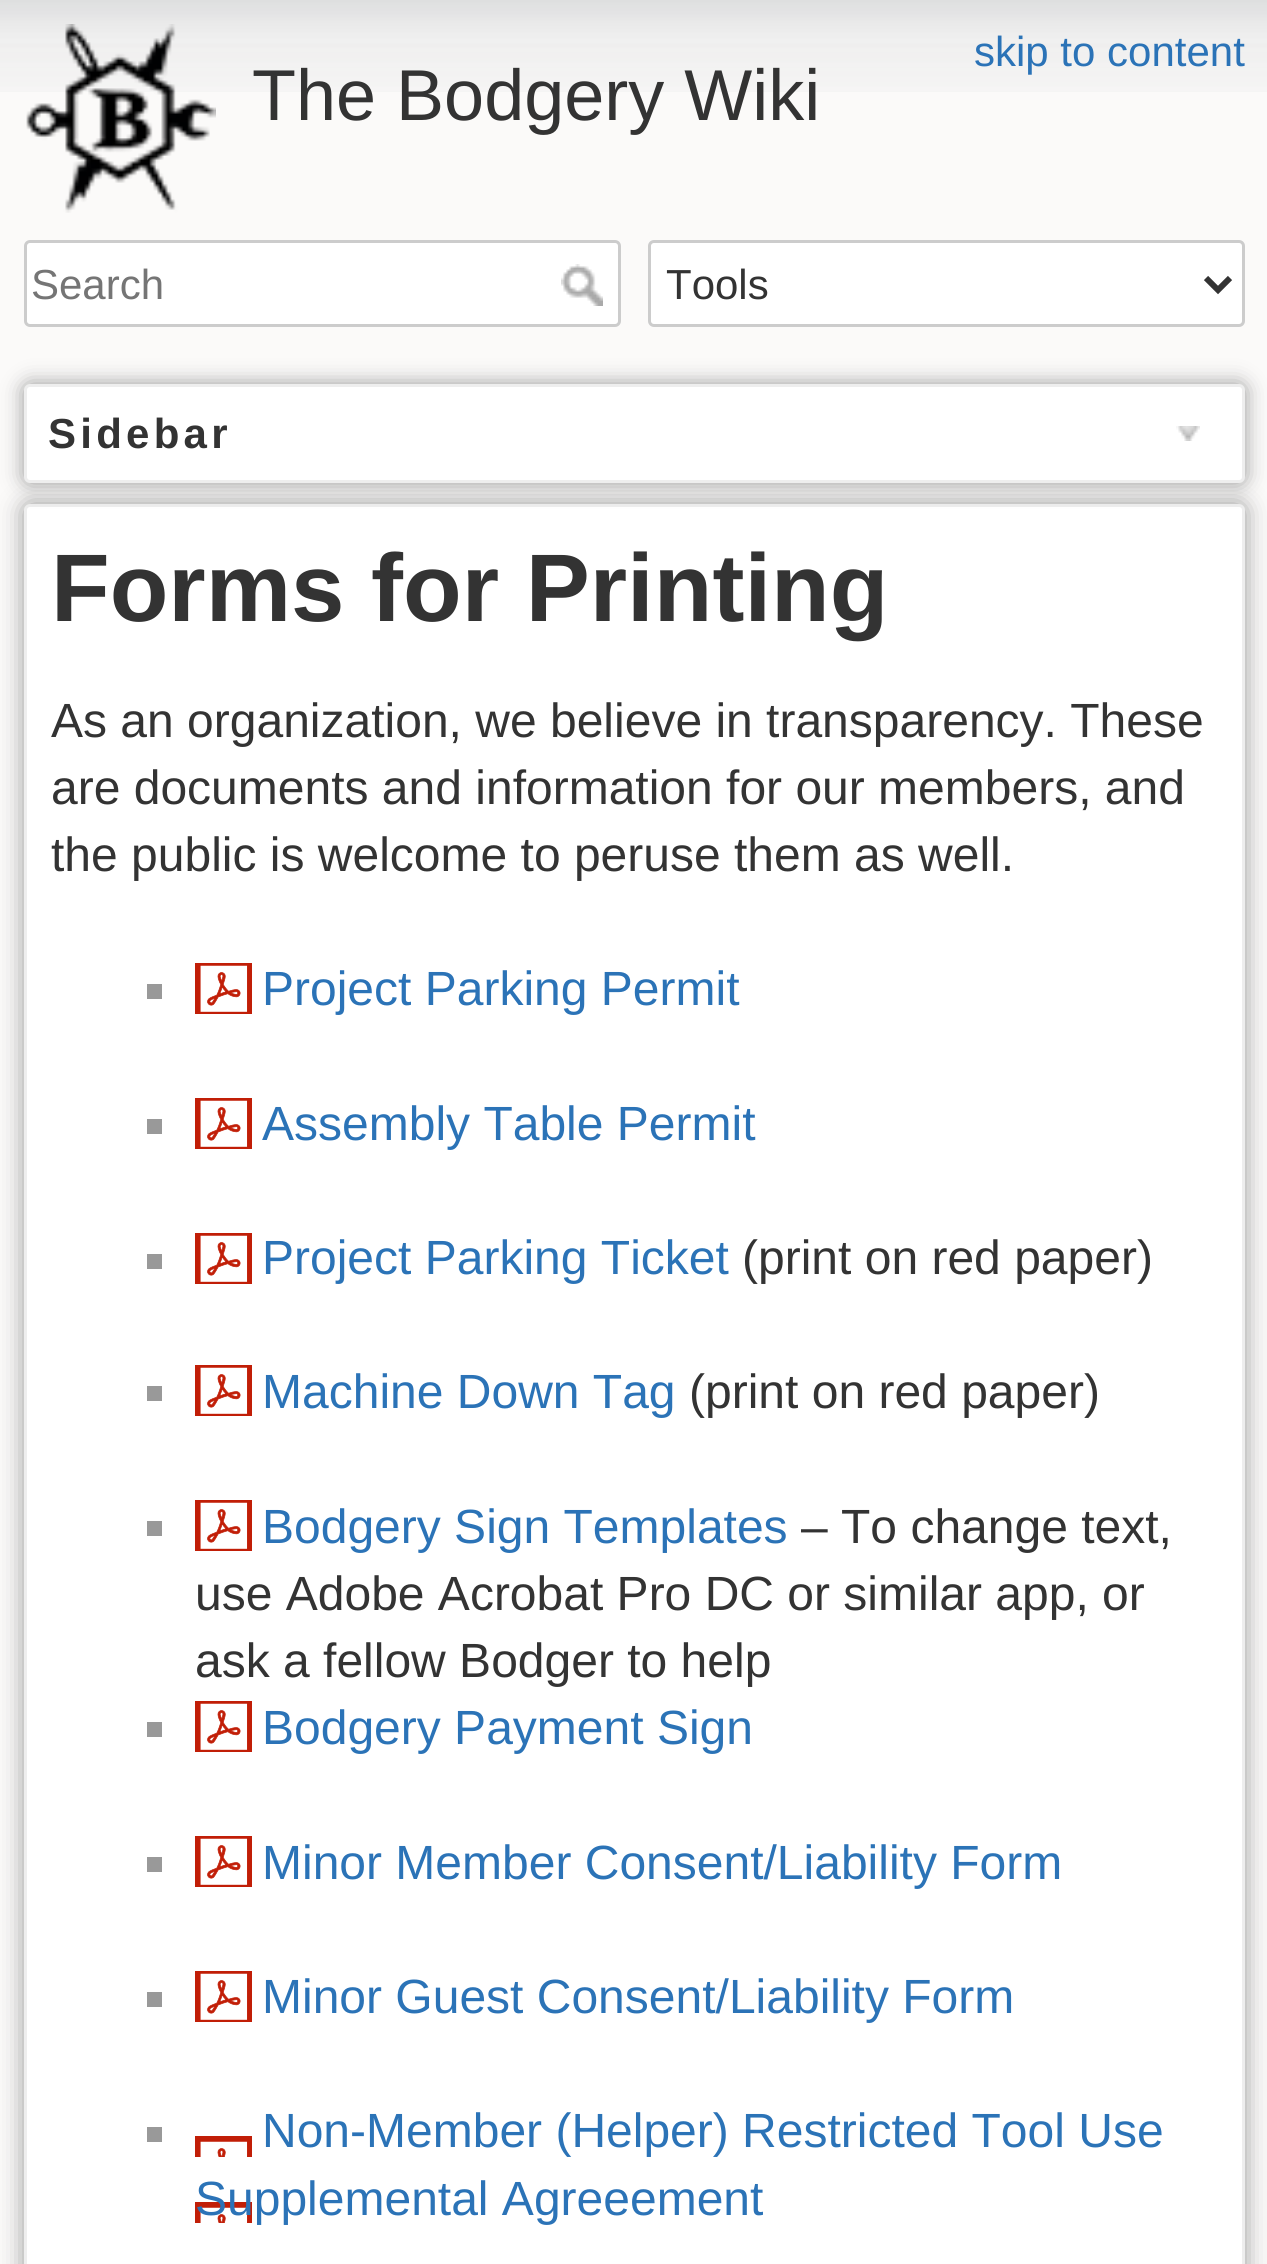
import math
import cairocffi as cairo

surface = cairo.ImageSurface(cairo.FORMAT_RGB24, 1267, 2264)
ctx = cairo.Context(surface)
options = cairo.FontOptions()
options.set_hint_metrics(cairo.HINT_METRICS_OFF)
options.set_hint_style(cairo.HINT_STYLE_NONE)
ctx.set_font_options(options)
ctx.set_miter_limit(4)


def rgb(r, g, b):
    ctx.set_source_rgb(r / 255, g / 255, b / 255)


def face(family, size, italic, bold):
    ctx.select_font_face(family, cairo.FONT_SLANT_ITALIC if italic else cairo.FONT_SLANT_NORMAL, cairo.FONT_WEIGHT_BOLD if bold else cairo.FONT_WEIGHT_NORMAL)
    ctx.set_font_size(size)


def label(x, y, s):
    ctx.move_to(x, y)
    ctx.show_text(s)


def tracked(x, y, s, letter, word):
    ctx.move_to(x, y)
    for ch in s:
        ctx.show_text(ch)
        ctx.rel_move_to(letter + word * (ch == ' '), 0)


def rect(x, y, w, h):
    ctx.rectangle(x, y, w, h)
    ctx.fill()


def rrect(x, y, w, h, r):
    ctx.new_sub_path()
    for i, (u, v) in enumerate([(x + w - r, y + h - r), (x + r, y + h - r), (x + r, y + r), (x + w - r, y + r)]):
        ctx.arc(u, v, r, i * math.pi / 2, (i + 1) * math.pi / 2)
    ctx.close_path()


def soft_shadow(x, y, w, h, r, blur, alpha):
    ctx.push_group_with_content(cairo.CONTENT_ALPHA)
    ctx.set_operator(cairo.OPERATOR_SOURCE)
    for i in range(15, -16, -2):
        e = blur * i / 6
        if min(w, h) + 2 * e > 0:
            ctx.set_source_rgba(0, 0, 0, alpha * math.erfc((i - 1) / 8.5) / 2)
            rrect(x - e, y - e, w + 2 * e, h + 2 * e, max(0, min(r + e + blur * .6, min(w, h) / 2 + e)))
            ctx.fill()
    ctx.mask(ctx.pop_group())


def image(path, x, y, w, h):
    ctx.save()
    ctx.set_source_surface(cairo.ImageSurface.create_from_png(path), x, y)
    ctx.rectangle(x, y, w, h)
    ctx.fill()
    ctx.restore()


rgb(251, 250, 249)
ctx.paint()
image('image0.png', 0, 0, 1267, 92)
face('Liberation Sans', 42, 0, 0)
rgb(43, 115, 183)
label(974, 66, 'skip to content')
image('image1.png', 26, 24, 190, 189)
face('Liberation Sans', 72, 0, 0)
rgb(51, 51, 51)
label(252, 120, 'The Bodgery Wiki')
rgb(255, 255, 255)
rrect(25.5, 241.5, 594, 84, 4.5)
ctx.fill_preserve()
rgb(204, 204, 204)
ctx.set_line_width(3)
ctx.stroke()
face('Liberation Sans', 42, 0, 0)
rgb(117, 117, 117)
label(31, 299, 'Search')
image('image2.png', 561, 264, 42, 42)
rgb(255, 255, 255)
rrect(649.5, 241.5, 594, 84, 4.5)
ctx.fill_preserve()
rgb(204, 204, 204)
ctx.stroke()
ctx.new_path()
ctx.move_to(1206, 278)
ctx.line_to(1218, 290)
ctx.line_to(1230, 278)
rgb(51, 51, 51)
ctx.set_line_width(6)
ctx.stroke()
label(666, 299, 'Tools')
rgb(153, 153, 153)
soft_shadow(24, 504, 1221, 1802, 6, 12, 1)
rgb(255, 255, 255)
rrect(25.5, 505.5, 1218, 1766, 4.5)
ctx.fill_preserve()
rgb(238, 238, 238)
ctx.set_line_width(3)
ctx.stroke()
rgb(153, 153, 153)
soft_shadow(24, 384, 1221, 99, 6, 10.5, 1)
rgb(255, 255, 255)
rrect(25.5, 385.5, 1218, 96, 4.5)
ctx.fill_preserve()
rgb(238, 238, 238)
ctx.stroke()
face('Liberation Sans', 42, 0, 1)
rgb(51, 51, 51)
tracked(48, 448, 'Sidebar', 4.25, 0)
image('image3.png', 1176, 426, 24, 15)
face('Liberation Sans', 96, 0, 1)
label(51, 621, 'Forms for Printing')
face('Liberation Sans', 48, 0, 0)
label(51, 737, 'As an organization, we believe in transparency. These')
label(51, 804, 'are documents and information for our members, and')
label(51, 871, 'the public is welcome to peruse them as well.')
rgb(153, 153, 153)
rect(147, 984, 15, 15)
image('image4.png', 195, 963, 57, 51)
rgb(43, 115, 183)
label(262, 1005, 'Project Parking Permit')
rgb(153, 153, 153)
rect(147, 1119, 15, 15)
image('image4.png', 195, 1098, 57, 51)
rgb(43, 115, 183)
label(262, 1140, 'Assembly Table Permit')
rgb(153, 153, 153)
rect(147, 1254, 15, 15)
image('image4.png', 195, 1233, 57, 51)
rgb(43, 115, 183)
label(262, 1274, 'Project Parking Ticket')
rgb(51, 51, 51)
label(742, 1274, '(print on red paper)')
rgb(153, 153, 153)
rect(147, 1386, 15, 15)
image('image4.png', 195, 1365, 57, 51)
rgb(43, 115, 183)
label(262, 1408, 'Machine Down Tag')
rgb(51, 51, 51)
label(689, 1408, '(print on red paper)')
rgb(153, 153, 153)
rect(147, 1521, 15, 15)
image('image4.png', 195, 1500, 57, 51)
rgb(43, 115, 183)
label(262, 1543, 'Bodgery Sign Templates')
rgb(51, 51, 51)
label(801, 1543, '– To change text,')
label(195, 1610, 'use Adobe Acrobat Pro DC or similar app, or')
label(195, 1677, 'ask a fellow Bodger to help')
rgb(153, 153, 153)
rect(147, 1722, 15, 15)
image('image4.png', 195, 1701, 57, 51)
rgb(43, 115, 183)
label(262, 1744, 'Bodgery Payment Sign')
rgb(153, 153, 153)
rect(147, 1857, 15, 15)
image('image4.png', 195, 1836, 57, 51)
rgb(43, 115, 183)
label(262, 1879, 'Minor Member Consent/Liability Form')
rgb(153, 153, 153)
rect(147, 1992, 15, 15)
image('image4.png', 195, 1971, 57, 51)
rgb(43, 115, 183)
label(262, 2013, 'Minor Guest Consent/Liability Form')
rgb(153, 153, 153)
rect(147, 2127, 15, 15)
image('image5.png', 195, 2136, 57, 87)
rgb(43, 115, 183)
label(262, 2147, 'Non-Member (Helper) Restricted Tool Use')
label(195, 2215, 'Supplemental Agreeement')
surface.write_to_png('render.png')
